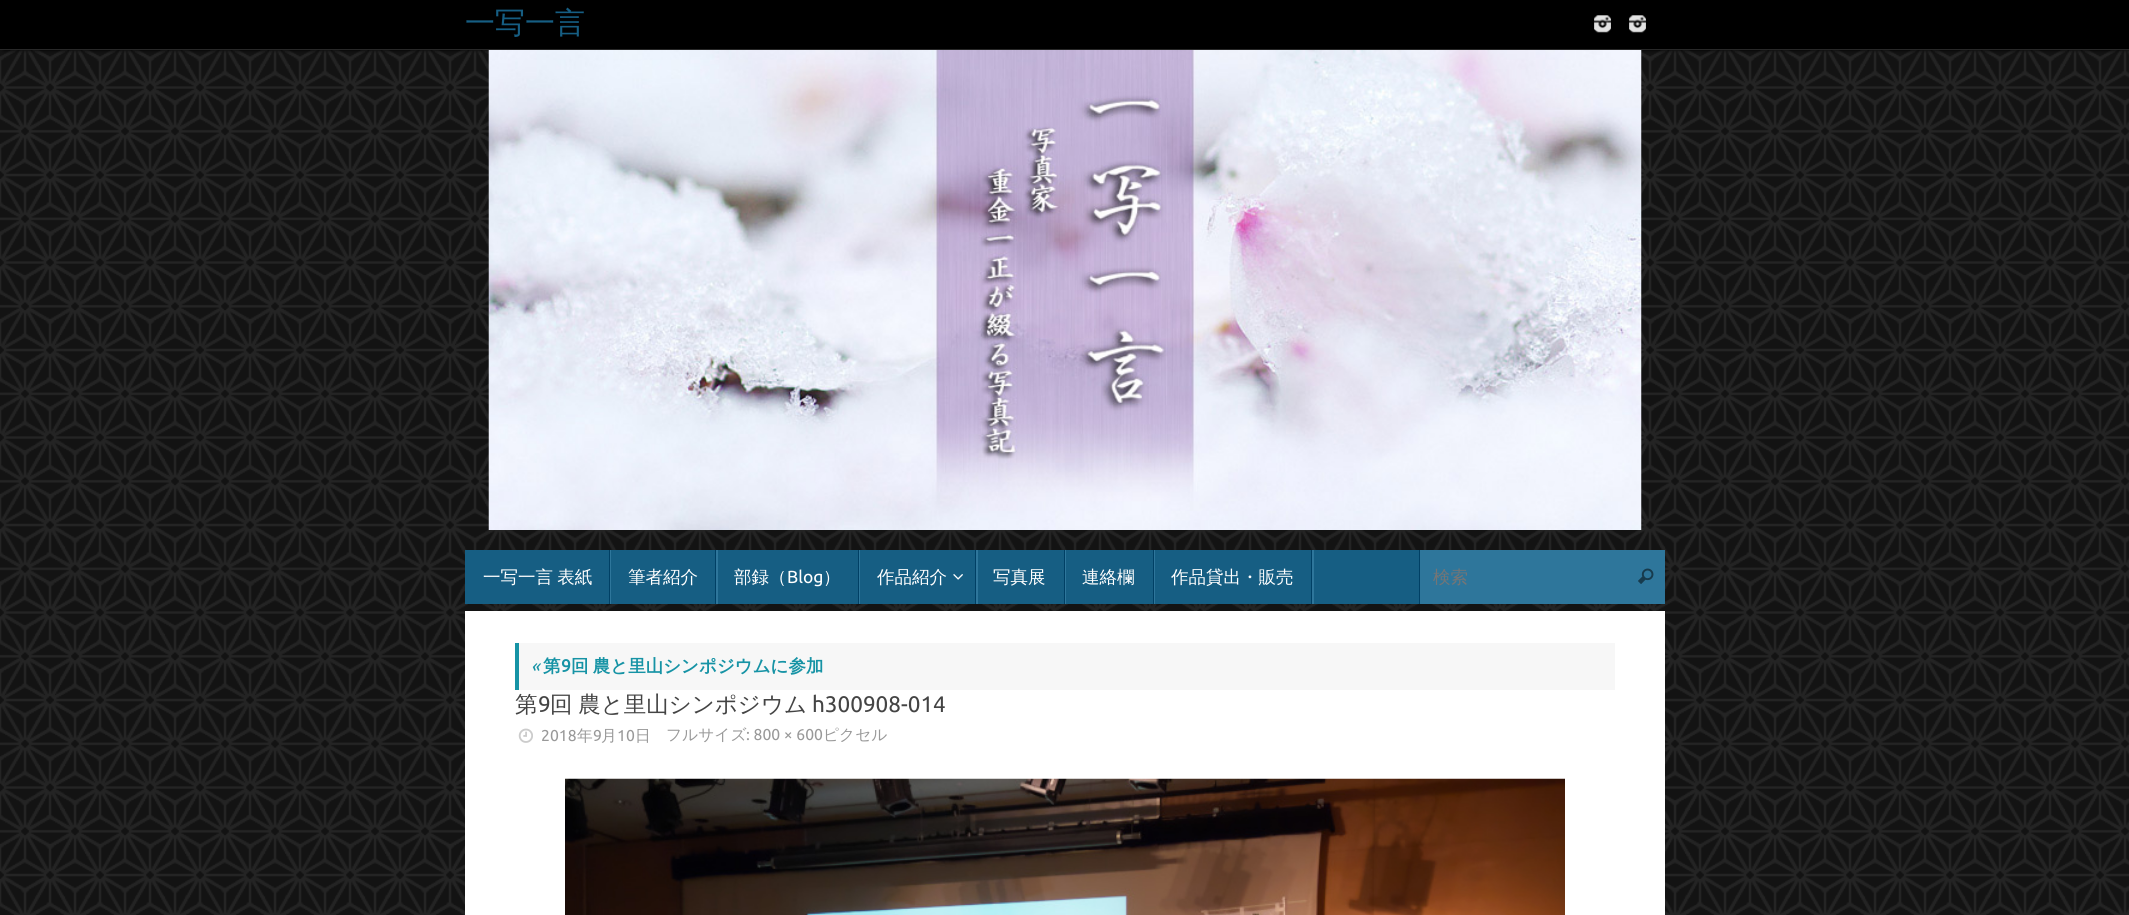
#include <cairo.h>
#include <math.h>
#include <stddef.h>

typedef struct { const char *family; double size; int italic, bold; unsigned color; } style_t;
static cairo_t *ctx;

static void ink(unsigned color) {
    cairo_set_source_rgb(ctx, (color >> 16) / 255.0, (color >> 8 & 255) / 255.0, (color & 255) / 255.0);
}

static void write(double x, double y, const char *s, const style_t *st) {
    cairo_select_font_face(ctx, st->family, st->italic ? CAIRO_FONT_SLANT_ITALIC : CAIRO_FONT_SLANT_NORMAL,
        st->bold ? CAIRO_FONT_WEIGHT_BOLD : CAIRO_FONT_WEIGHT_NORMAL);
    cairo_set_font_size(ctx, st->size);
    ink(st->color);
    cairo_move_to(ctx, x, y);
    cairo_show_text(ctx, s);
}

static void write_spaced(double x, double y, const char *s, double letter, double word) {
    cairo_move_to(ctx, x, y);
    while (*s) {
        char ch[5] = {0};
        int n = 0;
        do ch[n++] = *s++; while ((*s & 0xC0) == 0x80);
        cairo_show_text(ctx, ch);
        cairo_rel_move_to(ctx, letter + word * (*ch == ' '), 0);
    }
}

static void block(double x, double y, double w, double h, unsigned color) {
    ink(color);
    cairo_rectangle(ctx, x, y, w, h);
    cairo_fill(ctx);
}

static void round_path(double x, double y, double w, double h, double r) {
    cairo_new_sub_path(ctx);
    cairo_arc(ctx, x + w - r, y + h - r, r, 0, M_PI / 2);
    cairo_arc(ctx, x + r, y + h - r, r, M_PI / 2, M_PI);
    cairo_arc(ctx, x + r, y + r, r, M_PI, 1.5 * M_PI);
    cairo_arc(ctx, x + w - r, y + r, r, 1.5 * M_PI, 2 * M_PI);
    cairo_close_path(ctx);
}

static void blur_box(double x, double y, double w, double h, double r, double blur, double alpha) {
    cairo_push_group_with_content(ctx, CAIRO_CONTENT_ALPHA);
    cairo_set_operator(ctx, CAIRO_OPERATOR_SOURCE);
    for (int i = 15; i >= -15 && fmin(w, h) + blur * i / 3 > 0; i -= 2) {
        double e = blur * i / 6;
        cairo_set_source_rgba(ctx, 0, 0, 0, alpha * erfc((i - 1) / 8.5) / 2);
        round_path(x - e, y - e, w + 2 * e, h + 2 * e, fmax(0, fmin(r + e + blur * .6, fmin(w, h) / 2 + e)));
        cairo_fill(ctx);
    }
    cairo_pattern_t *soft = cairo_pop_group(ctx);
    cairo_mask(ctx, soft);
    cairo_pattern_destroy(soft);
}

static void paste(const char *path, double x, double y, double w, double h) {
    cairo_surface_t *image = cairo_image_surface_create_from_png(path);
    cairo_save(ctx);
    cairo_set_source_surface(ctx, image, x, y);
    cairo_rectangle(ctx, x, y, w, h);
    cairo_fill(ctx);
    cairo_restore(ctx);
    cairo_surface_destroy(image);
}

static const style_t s1 = {"WenQuanYi Zen Hei Medium", 30, 0, 0, 0x165e83};
static const style_t s2 = {"WenQuanYi Zen Hei Medium", 17.5, 0, 0, 0xffffff};
static const style_t s3 = {"Ubuntu", 17.5, 0, 0, 0xffffff};
static const style_t s4 = {"WenQuanYi Zen Hei Medium", 17.5, 0, 0, 0x757575};
static const style_t s5 = {"Ubuntu", 17.5, 1, 0, 0x1693a5};
static const style_t s6 = {"WenQuanYi Zen Hei", 17.5, 0, 1, 0x1693a5};
static const style_t s7 = {"Ubuntu", 17.5, 0, 1, 0x1693a5};
static const style_t s8 = {"WenQuanYi Zen Hei Medium", 22.5, 0, 0, 0x444444};
static const style_t s9 = {"Ubuntu", 22.5, 0, 0, 0x444444};
static const style_t s10 = {"Ubuntu", 15.75, 0, 0, 0x999999};
static const style_t s11 = {"WenQuanYi Zen Hei Medium", 15.75, 0, 0, 0x999999};

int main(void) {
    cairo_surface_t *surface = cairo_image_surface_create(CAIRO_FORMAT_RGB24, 2129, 915);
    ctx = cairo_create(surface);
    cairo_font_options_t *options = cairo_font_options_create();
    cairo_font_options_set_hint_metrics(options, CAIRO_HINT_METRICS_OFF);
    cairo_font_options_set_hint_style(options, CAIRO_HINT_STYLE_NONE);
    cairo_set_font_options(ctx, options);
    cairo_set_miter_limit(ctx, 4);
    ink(0xffffff);
    cairo_paint(ctx);
    paste("pic1.png", 0, 50, 2129, 865);
    ink(0x000000);
    blur_box(4, 0, 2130, 50, 0, 2, 1);
    block(0, 0, 2129, 49, 0x000000);
    block(0, 49, 2129, 1, 0x282828);
    write(465, 33, "一写一言", &s1);
    paste("pic2.png", 1594, 15, 17, 18);
    paste("pic2.png", 1629, 15, 17, 18);
    paste("pic3.png", 488, 50, 1154, 480);
    block(465, 550, 954, 54, 0x165e83);
    ink(0x2e769b);
    cairo_new_path(ctx);
    cairo_move_to(ctx, 466, 604);
    cairo_line_to(ctx, 611, 604);
    cairo_line_to(ctx, 611, 550);
    cairo_line_to(ctx, 610, 550);
    cairo_line_to(ctx, 610, 604);
    cairo_close_path(ctx);
    cairo_fill(ctx);
    block(609, 550, 1, 54, 0x004065);
    cairo_set_font_size(ctx, 17.5);
    ink(0xffffff);
    write_spaced(483, 583, "一写一言 表紙", 0, -1);
    ink(0x2e769b);
    cairo_new_path(ctx);
    cairo_move_to(ctx, 611, 604);
    cairo_line_to(ctx, 718, 604);
    cairo_line_to(ctx, 718, 550);
    cairo_line_to(ctx, 716, 550);
    cairo_line_to(ctx, 716, 604);
    cairo_close_path(ctx);
    cairo_fill(ctx);
    block(715, 550, 1, 54, 0x004065);
    write(628, 583, "筆者紹介", &s2);
    ink(0x2e769b);
    cairo_new_path(ctx);
    cairo_move_to(ctx, 718, 604);
    cairo_line_to(ctx, 860, 604);
    cairo_line_to(ctx, 860, 550);
    cairo_line_to(ctx, 859, 550);
    cairo_line_to(ctx, 859, 604);
    cairo_close_path(ctx);
    cairo_fill(ctx);
    block(858, 550, 1, 54, 0x004065);
    write(734, 583, "部録（", &s2);
    write(787, 583, "Blog", &s3);
    write(823, 583, "）", &s2);
    ink(0x2e769b);
    cairo_new_path(ctx);
    cairo_move_to(ctx, 860, 604);
    cairo_line_to(ctx, 978, 604);
    cairo_line_to(ctx, 978, 550);
    cairo_line_to(ctx, 976, 550);
    cairo_line_to(ctx, 976, 604);
    cairo_close_path(ctx);
    cairo_fill(ctx);
    block(975, 550, 1, 54, 0x004065);
    write(877, 583, "作品紹介", &s2);
    paste("pic4.png", 953, 574, 10, 6);
    ink(0x2e769b);
    cairo_new_path(ctx);
    cairo_move_to(ctx, 978, 604);
    cairo_line_to(ctx, 1066, 604);
    cairo_line_to(ctx, 1066, 550);
    cairo_line_to(ctx, 1065, 550);
    cairo_line_to(ctx, 1065, 604);
    cairo_close_path(ctx);
    cairo_fill(ctx);
    block(1064, 550, 1, 54, 0x004065);
    write(993, 583, "写真展", &s2);
    ink(0x2e769b);
    cairo_new_path(ctx);
    cairo_move_to(ctx, 1066, 604);
    cairo_line_to(ctx, 1155, 604);
    cairo_line_to(ctx, 1155, 550);
    cairo_line_to(ctx, 1154, 550);
    cairo_line_to(ctx, 1154, 604);
    cairo_close_path(ctx);
    cairo_fill(ctx);
    block(1153, 550, 1, 54, 0x004065);
    write(1082, 583, "連絡欄", &s2);
    ink(0x2e769b);
    cairo_new_path(ctx);
    cairo_move_to(ctx, 1155, 604);
    cairo_line_to(ctx, 1314, 604);
    cairo_line_to(ctx, 1314, 550);
    cairo_line_to(ctx, 1312, 550);
    cairo_line_to(ctx, 1312, 604);
    cairo_close_path(ctx);
    cairo_fill(ctx);
    block(1311, 550, 1, 54, 0x004065);
    write(1171, 583, "作品貸出・販売", &s2);
    block(1420, 550, 245, 54, 0x2e769b);
    block(1419, 550, 1, 54, 0x004065);
    write(1433, 583, "検索", &s4);
    paste("pic5.png", 1638, 568, 16, 16);
    block(465, 611, 1200, 304, 0xffffff);
    block(519, 643, 1096, 47, 0xf7f7f7);
    block(515, 643, 4, 47, 0x1693a5);
    write(531, 672, "«", &s5);
    write(543, 672, "第", &s6);
    write(561, 672, "9", &s7);
    cairo_select_font_face(ctx, "WenQuanYi Zen Hei", CAIRO_FONT_SLANT_NORMAL, CAIRO_FONT_WEIGHT_BOLD);
    write_spaced(571, 672, "回 農と里山シンポジウムに参加", 0, -1);
    write(515, 712, "第", &s8);
    write(538, 712, "9", &s9);
    cairo_select_font_face(ctx, "WenQuanYi Zen Hei Medium", CAIRO_FONT_SLANT_NORMAL, CAIRO_FONT_WEIGHT_NORMAL);
    write_spaced(550, 712, "回 農と里山シンポジウム", 0, -1);
    write(812, 712, "h300908-014", &s9);
    paste("pic6.png", 518, 728, 15, 15);
    write(541, 741, "2018", &s10);
    write(577, 741, "年", &s11);
    write(593, 741, "9", &s10);
    write(601, 741, "月", &s11);
    write(617, 741, "10", &s10);
    write(635, 741, "日", &s11);
    write(666, 740, "フルサイズ", &s11);
    write(746, 740, ": 800 × 600", &s10);
    write(823, 740, "ピクセル", &s11);
    paste("pic7.png", 565, 778, 1000, 137);
    cairo_surface_write_to_png(surface, "screenshot.png");
    cairo_font_options_destroy(options);
    cairo_destroy(ctx);
    cairo_surface_destroy(surface);
    return 0;
}
